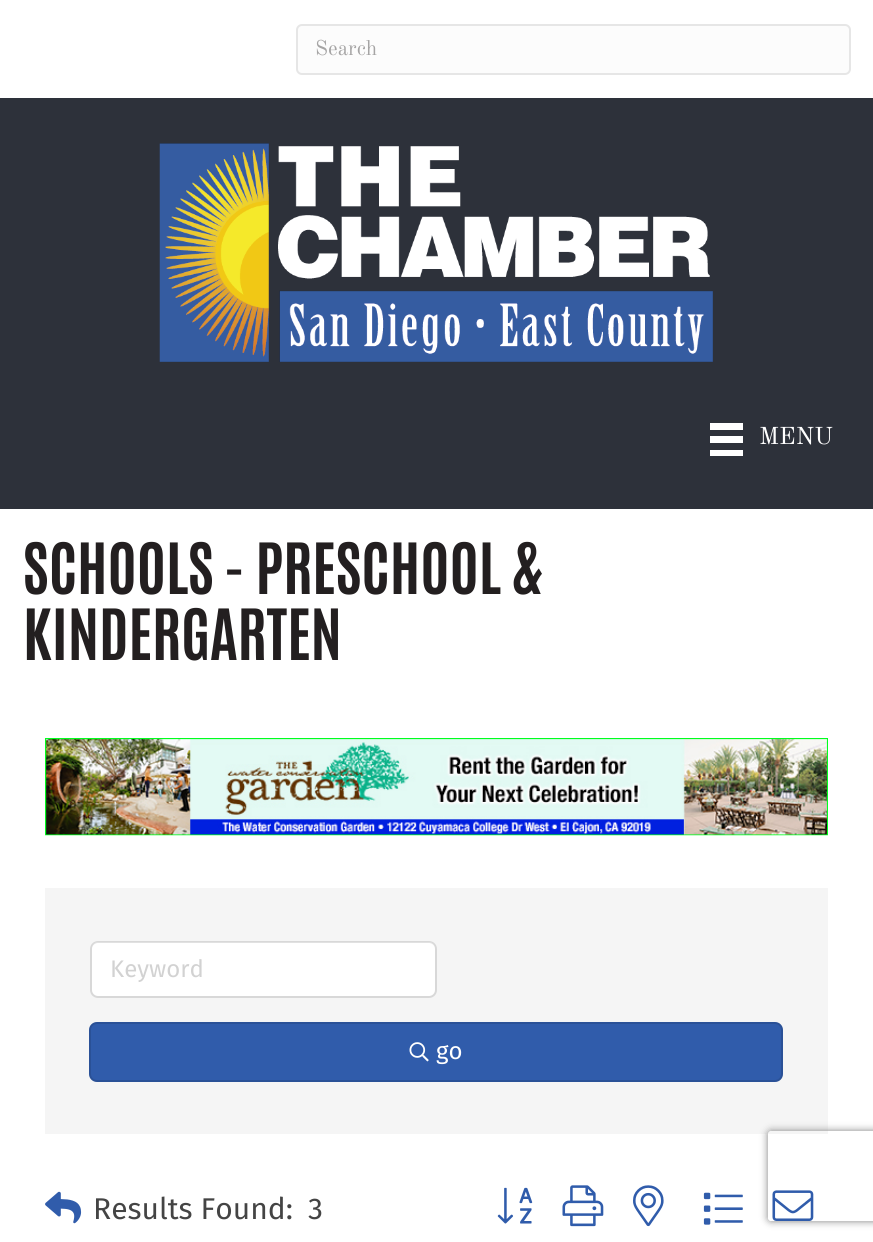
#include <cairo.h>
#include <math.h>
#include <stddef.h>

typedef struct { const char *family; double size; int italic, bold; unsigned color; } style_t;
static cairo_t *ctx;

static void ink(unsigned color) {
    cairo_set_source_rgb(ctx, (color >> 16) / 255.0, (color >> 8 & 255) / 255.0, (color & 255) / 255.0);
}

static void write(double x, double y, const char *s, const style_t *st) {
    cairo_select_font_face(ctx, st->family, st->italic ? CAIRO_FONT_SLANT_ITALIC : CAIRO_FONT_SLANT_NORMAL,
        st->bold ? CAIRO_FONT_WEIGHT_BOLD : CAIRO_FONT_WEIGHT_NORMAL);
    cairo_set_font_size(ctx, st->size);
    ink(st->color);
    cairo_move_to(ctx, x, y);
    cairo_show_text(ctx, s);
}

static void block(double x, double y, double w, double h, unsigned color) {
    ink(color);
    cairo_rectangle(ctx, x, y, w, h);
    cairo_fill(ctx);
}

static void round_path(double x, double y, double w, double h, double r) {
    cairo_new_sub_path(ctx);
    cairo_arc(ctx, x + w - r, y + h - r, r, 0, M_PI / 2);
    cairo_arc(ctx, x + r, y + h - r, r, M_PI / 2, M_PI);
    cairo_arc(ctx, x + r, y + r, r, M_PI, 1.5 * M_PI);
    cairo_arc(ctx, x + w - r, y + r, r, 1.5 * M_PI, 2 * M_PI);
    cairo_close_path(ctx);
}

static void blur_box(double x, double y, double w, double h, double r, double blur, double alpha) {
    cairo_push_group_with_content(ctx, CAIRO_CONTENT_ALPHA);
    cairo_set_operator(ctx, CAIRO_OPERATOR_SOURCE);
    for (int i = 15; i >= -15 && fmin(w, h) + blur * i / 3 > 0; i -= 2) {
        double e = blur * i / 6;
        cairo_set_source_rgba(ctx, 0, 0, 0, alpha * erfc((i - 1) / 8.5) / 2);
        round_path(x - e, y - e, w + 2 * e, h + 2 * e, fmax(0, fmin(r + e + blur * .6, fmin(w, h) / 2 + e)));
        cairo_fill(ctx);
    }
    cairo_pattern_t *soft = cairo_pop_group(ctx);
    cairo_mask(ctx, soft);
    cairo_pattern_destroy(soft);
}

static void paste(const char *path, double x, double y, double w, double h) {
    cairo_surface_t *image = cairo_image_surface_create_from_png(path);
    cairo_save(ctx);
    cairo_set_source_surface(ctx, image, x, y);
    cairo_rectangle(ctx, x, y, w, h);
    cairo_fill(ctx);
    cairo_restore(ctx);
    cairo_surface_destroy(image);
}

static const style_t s1 = {"Old Standard TT", 21, 0, 0, 0xa5a4a4};
static const style_t s2 = {"Old Standard TT", 24, 0, 0, 0xffffff};
static const style_t s3 = {"Antonio", 60, 0, 1, 0x231f20};
static const style_t s4 = {"Fira Sans", 24, 0, 0, 0xd2d2d2};
static const style_t s5 = {"Fira Sans", 24, 0, 0, 0xffffff};
static const style_t s6 = {"Fira Sans", 30, 0, 0, 0x444444};

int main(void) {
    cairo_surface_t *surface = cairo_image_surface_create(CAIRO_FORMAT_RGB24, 873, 1242);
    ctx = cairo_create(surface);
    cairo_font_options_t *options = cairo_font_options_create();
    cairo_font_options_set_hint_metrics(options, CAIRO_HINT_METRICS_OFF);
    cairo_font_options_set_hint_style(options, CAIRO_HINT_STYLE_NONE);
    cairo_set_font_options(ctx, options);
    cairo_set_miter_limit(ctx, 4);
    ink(0x2d313a);
    cairo_paint(ctx);
    block(0, 0, 873, 98, 0xffffff);
    ink(0xfcfcfc);
    round_path(297, 25, 553, 49, 5);
    cairo_fill_preserve(ctx);
    ink(0xe6e6e6);
    cairo_stroke(ctx);
    write(315, 55, "Search", &s1);
    paste("pic1.png", 159, 143, 554, 219);
    block(710, 423, 33, 7, 0xffffff);
    block(710, 436, 33, 7, 0xffffff);
    block(710, 450, 33, 6, 0xffffff);
    write(759, 444, "MENU", &s2);
    block(0, 509, 873, 733, 0xffffff);
    write(23, 594, "SCHOOLS - PRESCHOOL &", &s3);
    write(23, 660, "KINDERGARTEN", &s3);
    paste("pic2.png", 45, 738, 783, 98);
    block(45, 888, 783, 246, 0xf5f5f5);
    ink(0xffffff);
    round_path(92, 942, 343, 54, 6);
    cairo_fill(ctx);
    round_path(91, 942, 345, 55, 7);
    cairo_set_source_rgba(ctx, 0, 0, 0, 0.12);
    cairo_stroke(ctx);
    write(110, 977, "Keyword", &s4);
    ink(0x305cab);
    round_path(89, 1022, 694, 60, 8);
    cairo_fill(ctx);
    round_path(90, 1023, 692, 58, 7);
    cairo_set_source_rgba(ctx, 0, 0, 0, 0.12);
    cairo_stroke(ctx);
    paste("pic3.png", 409, 1042, 20, 20);
    write(436, 1059, "go", &s5);
    paste("pic4.png", 45, 1191, 37, 33);
    write(93, 1219, "Results Found:", &s6);
    write(308, 1219, "3", &s6);
    paste("pic5.png", 497, 1187, 36, 37);
    paste("pic6.png", 562, 1185, 42, 42);
    paste("pic7.png", 633, 1185, 31, 42);
    paste("pic8.png", 703, 1192, 40, 33);
    paste("pic9.png", 772, 1190, 42, 31);
    cairo_save(ctx);
    cairo_set_fill_rule(ctx, CAIRO_FILL_RULE_EVEN_ODD);
    cairo_new_path(ctx);
    cairo_move_to(ctx, 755, 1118);
    cairo_line_to(ctx, 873, 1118);
    cairo_line_to(ctx, 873, 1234);
    cairo_line_to(ctx, 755, 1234);
    cairo_close_path(ctx);
    cairo_move_to(ctx, 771, 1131);
    cairo_line_to(ctx, 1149, 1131);
    cairo_curve_to(ctx, 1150.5, 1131, 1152, 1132.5, 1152, 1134);
    cairo_line_to(ctx, 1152, 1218);
    cairo_curve_to(ctx, 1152, 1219.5, 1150.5, 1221, 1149, 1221);
    cairo_line_to(ctx, 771, 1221);
    cairo_curve_to(ctx, 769.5, 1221, 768, 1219.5, 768, 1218);
    cairo_line_to(ctx, 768, 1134);
    cairo_curve_to(ctx, 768, 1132.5, 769.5, 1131, 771, 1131);
    cairo_close_path(ctx);
    cairo_clip(ctx);
    ink(0x808080);
    blur_box(768, 1131, 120, 90, 3, 4, 1);
    cairo_restore(ctx);
    cairo_surface_write_to_png(surface, "screenshot.png");
    cairo_font_options_destroy(options);
    cairo_destroy(ctx);
    cairo_surface_destroy(surface);
    return 0;
}
